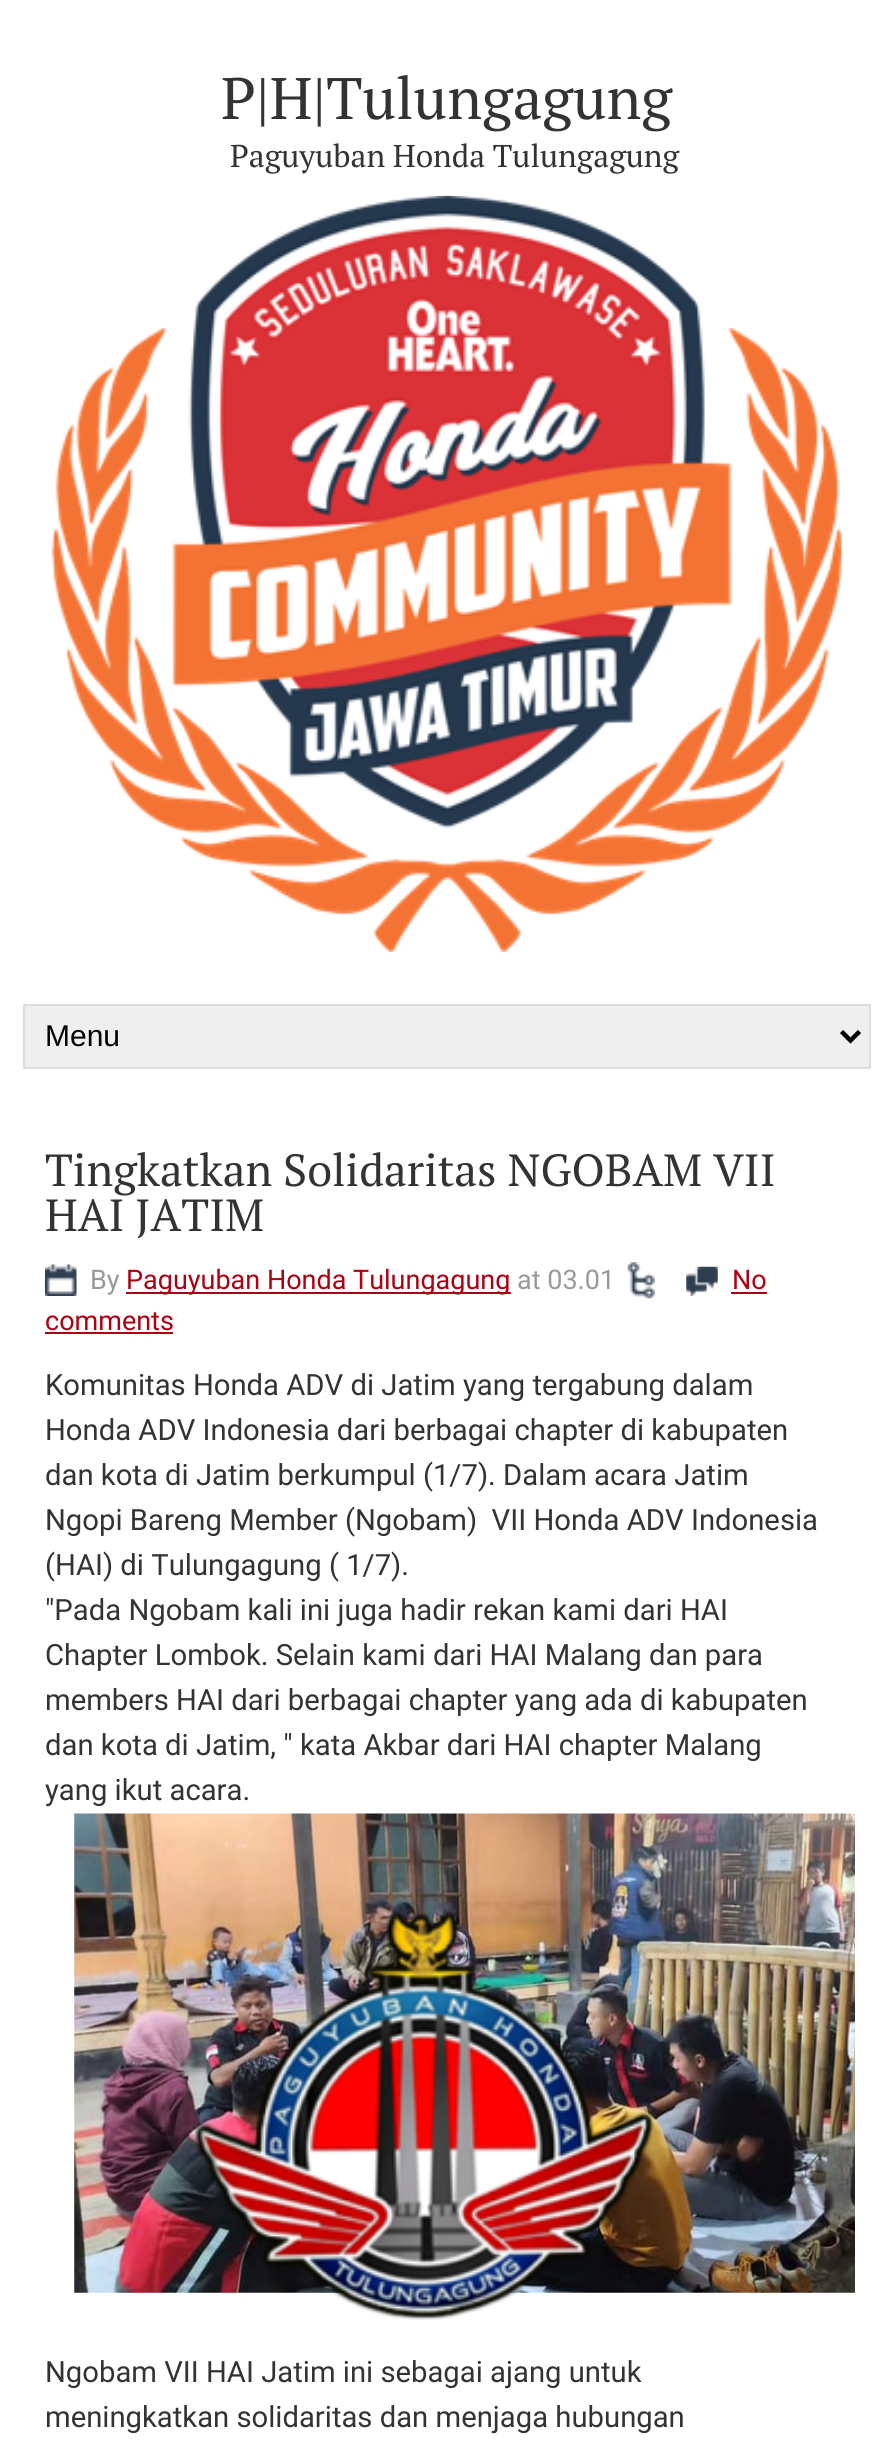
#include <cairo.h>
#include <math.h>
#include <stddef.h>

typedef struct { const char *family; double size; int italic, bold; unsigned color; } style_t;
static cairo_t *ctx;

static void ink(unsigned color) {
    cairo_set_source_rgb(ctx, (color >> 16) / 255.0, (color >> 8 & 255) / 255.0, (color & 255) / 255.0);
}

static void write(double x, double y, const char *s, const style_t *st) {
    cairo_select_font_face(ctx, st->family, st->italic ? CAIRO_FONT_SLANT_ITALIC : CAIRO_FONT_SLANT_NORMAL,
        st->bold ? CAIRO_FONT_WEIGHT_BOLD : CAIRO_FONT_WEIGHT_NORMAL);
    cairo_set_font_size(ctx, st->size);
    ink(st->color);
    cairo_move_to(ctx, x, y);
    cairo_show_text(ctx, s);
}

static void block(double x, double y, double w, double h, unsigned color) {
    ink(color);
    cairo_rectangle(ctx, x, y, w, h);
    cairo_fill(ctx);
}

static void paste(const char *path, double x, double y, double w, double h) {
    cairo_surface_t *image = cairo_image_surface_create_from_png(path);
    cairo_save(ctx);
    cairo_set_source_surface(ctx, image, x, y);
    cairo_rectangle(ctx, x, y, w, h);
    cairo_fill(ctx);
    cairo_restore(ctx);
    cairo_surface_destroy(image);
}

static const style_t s1 = {"PT Serif", 58.5, 0, 0, 0x333333};
static const style_t s2 = {"PT Serif", 31.5, 0, 0, 0x333333};
static const style_t s3 = {"Liberation Sans", 30, 0, 0, 0x000000};
static const style_t s4 = {"PT Serif", 45, 0, 0, 0x333333};
static const style_t s5 = {"Roboto", 27, 0, 0, 0x999999};
static const style_t s6 = {"Roboto", 27, 0, 0, 0xae0011};
static const style_t s7 = {"Roboto", 29.25, 0, 0, 0x333333};

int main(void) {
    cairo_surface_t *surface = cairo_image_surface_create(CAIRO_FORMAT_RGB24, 893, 2461);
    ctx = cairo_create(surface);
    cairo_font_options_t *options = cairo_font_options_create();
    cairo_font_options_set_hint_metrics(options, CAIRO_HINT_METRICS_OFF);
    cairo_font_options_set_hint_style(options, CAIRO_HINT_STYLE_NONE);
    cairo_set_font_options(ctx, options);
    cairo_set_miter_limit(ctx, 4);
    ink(0xffffff);
    cairo_paint(ctx);
    write(221, 119, "P|H|Tulungagung", &s1);
    write(230, 167, "Paguyuban Honda Tulungagung", &s2);
    paste("pic1.png", 51, 195, 791, 757);
    ink(0xefefef);
    cairo_rectangle(ctx, 24, 1005, 846, 63);
    cairo_fill_preserve(ctx);
    ink(0xdddddd);
    cairo_stroke(ctx);
    cairo_new_path(ctx);
    cairo_move_to(ctx, 841.5, 1031.5);
    cairo_line_to(ctx, 850.5, 1040.5);
    cairo_line_to(ctx, 859.5, 1031.5);
    ink(0x000000);
    cairo_set_line_width(ctx, 4.5);
    cairo_stroke(ctx);
    write(45, 1046, "Menu", &s3);
    write(45, 1186, "Tingkatkan Solidaritas NGOBAM VII", &s4);
    write(45, 1231, "HAI JATIM", &s4);
    paste("pic2.png", 45, 1264, 32, 32);
    write(90, 1289, "By", &s5);
    block(126, 1292, 385, 2, 0xae0011);
    write(126, 1289, "Paguyuban Honda Tulungagung", &s6);
    write(517, 1289, "at 03.01", &s5);
    paste("pic3.png", 627, 1262, 28, 37);
    paste("pic4.png", 686, 1266, 32, 30);
    write(732, 1289, "No", &s6);
    block(731, 1292, 36, 2, 0xae0011);
    write(45, 1330, "comments", &s6);
    block(45, 1332, 128, 2, 0xae0011);
    write(45, 1395, "Komunitas Honda ADV di Jatim yang tergabung dalam", &s7);
    write(45, 1440, "Honda ADV Indonesia dari berbagai chapter di kabupaten", &s7);
    write(45, 1485, "dan kota di Jatim berkumpul (1/7). Dalam acara Jatim", &s7);
    write(45, 1530, "Ngopi Bareng Member (Ngobam)  VII Honda ADV Indonesia", &s7);
    write(45, 1575, "(HAI) di Tulungagung ( 1/7).", &s7);
    write(45, 1620, "\"Pada Ngobam kali ini juga hadir rekan kami dari HAI", &s7);
    write(45, 1665, "Chapter Lombok. Selain kami dari HAI Malang dan para", &s7);
    write(45, 1710, "members HAI dari berbagai chapter yang ada di kabupaten", &s7);
    write(45, 1755, "dan kota di Jatim, \" kata Akbar dari HAI chapter Malang", &s7);
    write(45, 1800, "yang ikut acara.", &s7);
    paste("pic5.png", 74, 1813, 781, 480);
    write(45, 2382, "Ngobam VII HAI Jatim ini sebagai ajang untuk", &s7);
    write(45, 2427, "meningkatkan solidaritas dan menjaga hubungan", &s7);
    paste("pic6.png", 193, 1909, 462, 411);
    cairo_surface_write_to_png(surface, "screenshot.png");
    cairo_font_options_destroy(options);
    cairo_destroy(ctx);
    cairo_surface_destroy(surface);
    return 0;
}
